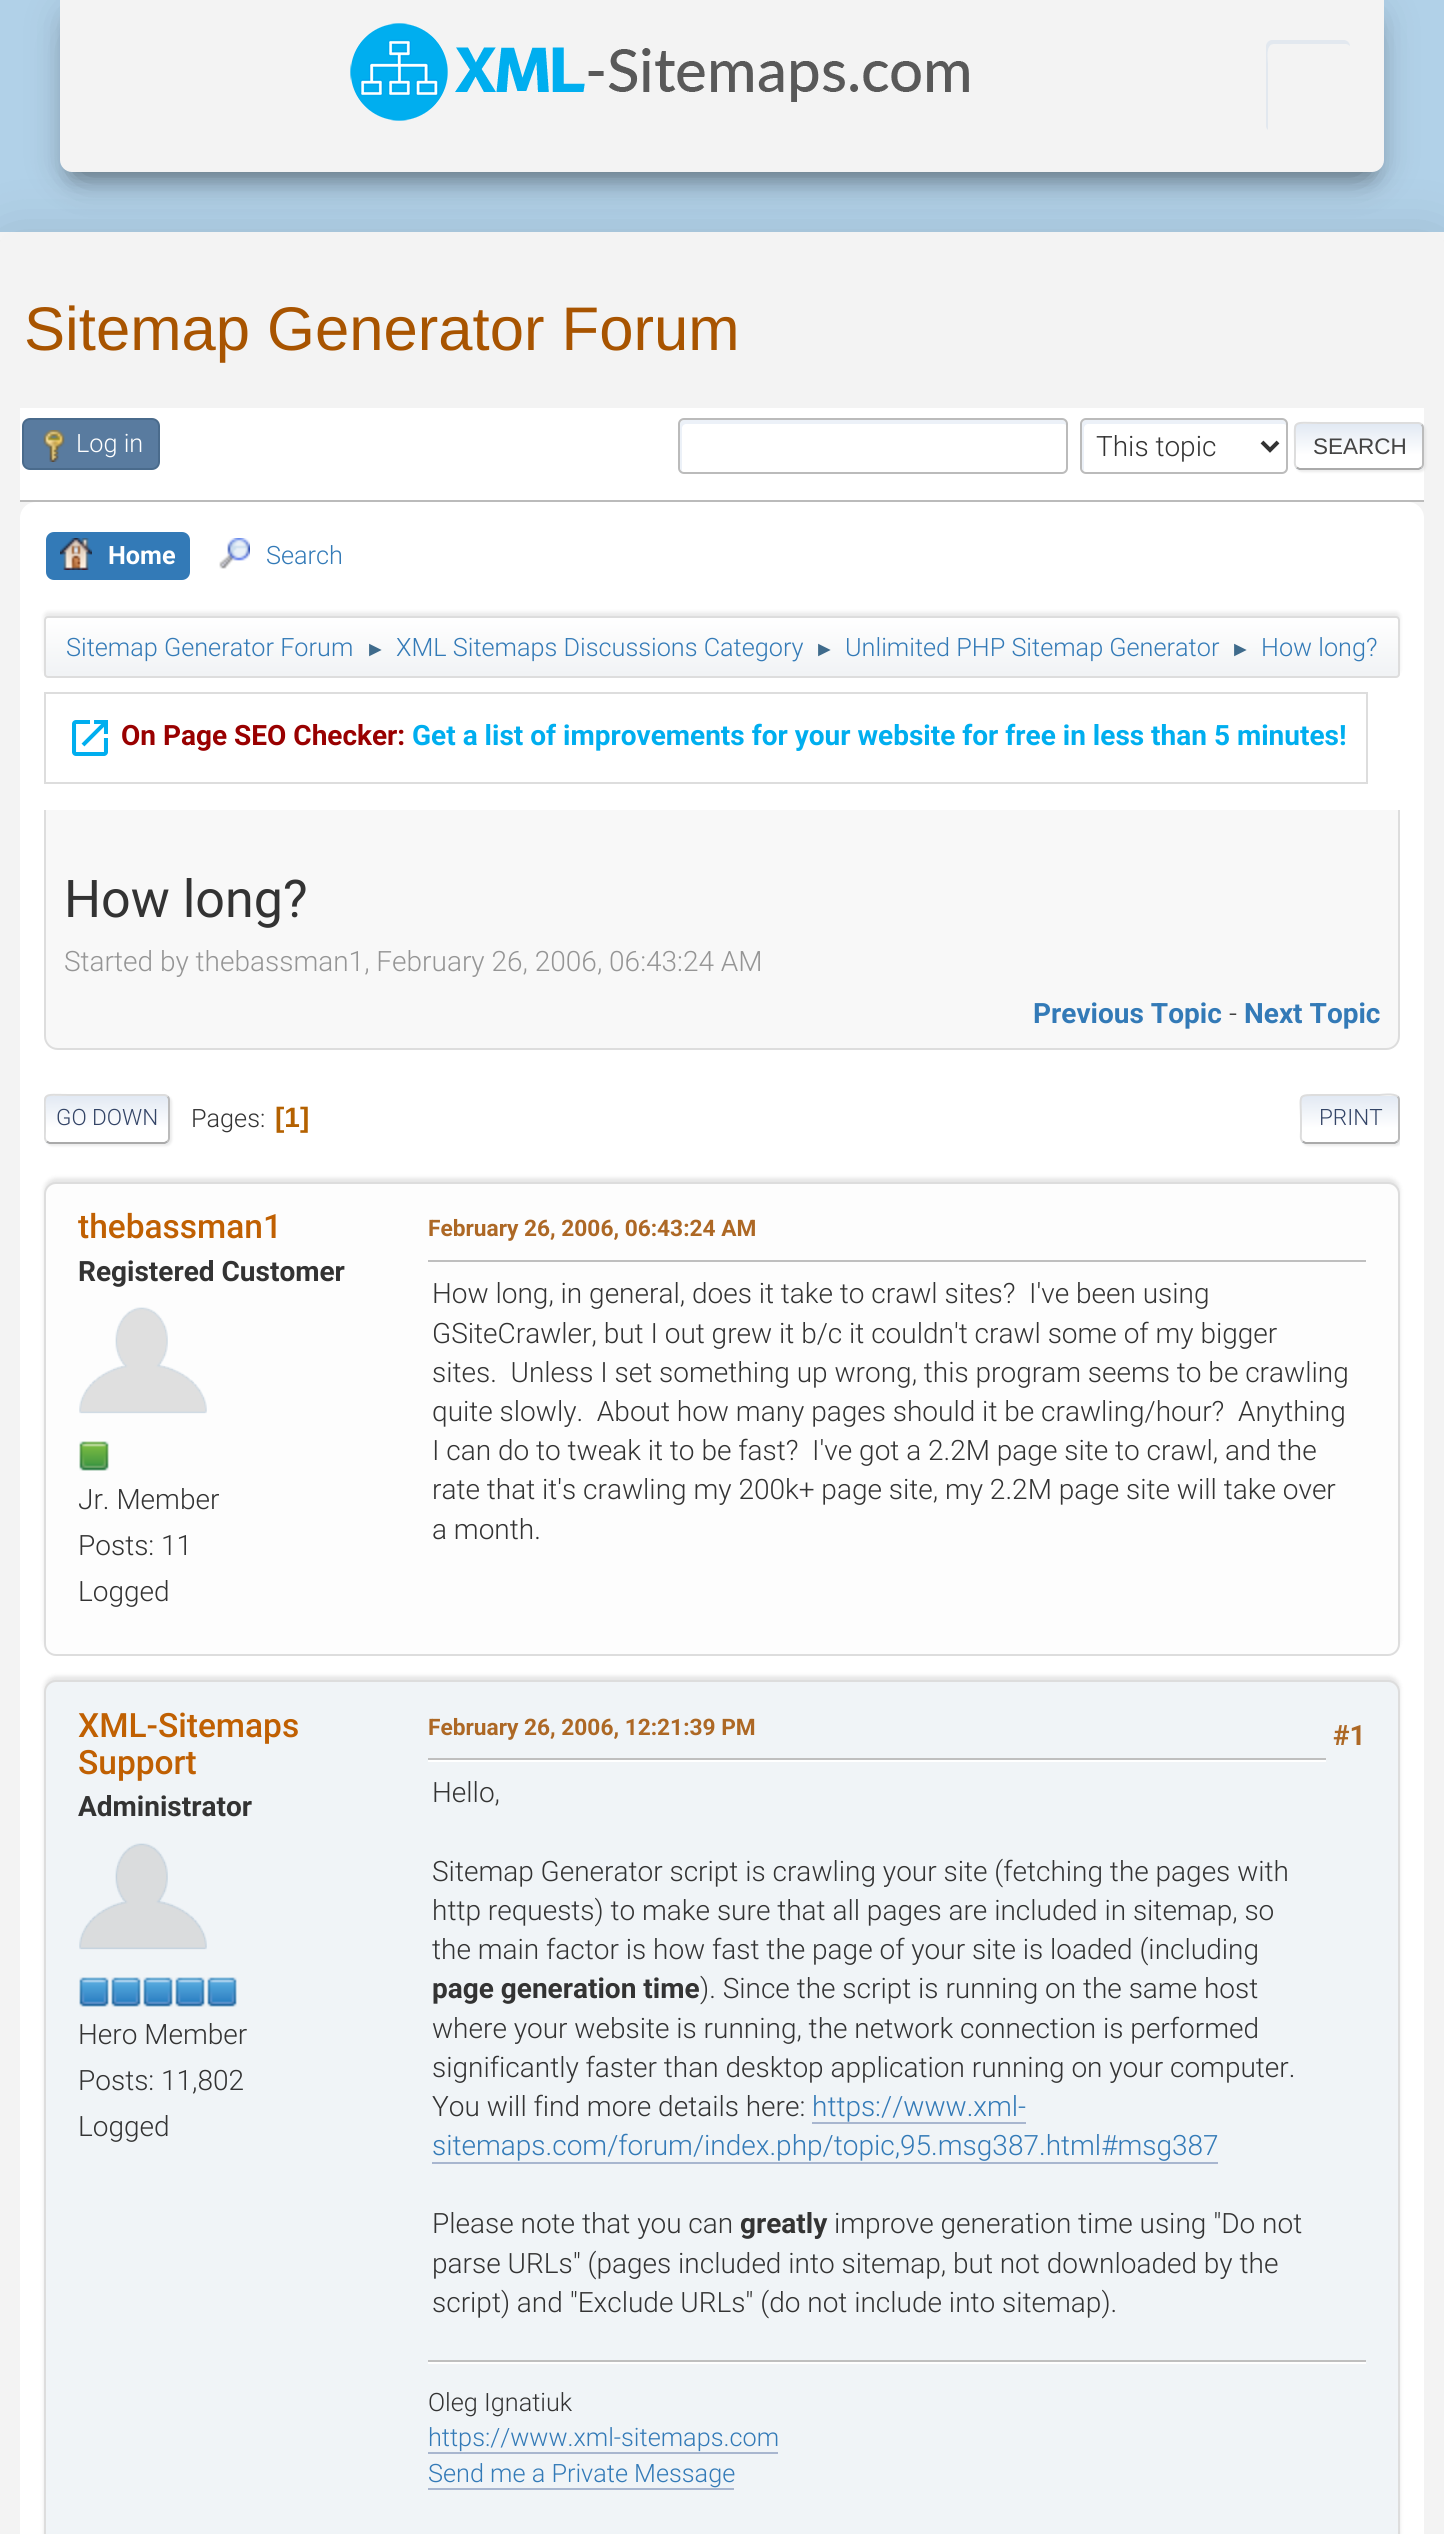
#include <cairo.h>
#include <math.h>
#include <stddef.h>

typedef struct { const char *family; double size; int italic, bold; unsigned color; } style_t;
static cairo_t *ctx;

static void ink(unsigned color) {
    cairo_set_source_rgb(ctx, (color >> 16) / 255.0, (color >> 8 & 255) / 255.0, (color & 255) / 255.0);
}

static void write(double x, double y, const char *s, const style_t *st) {
    cairo_select_font_face(ctx, st->family, st->italic ? CAIRO_FONT_SLANT_ITALIC : CAIRO_FONT_SLANT_NORMAL,
        st->bold ? CAIRO_FONT_WEIGHT_BOLD : CAIRO_FONT_WEIGHT_NORMAL);
    cairo_set_font_size(ctx, st->size);
    ink(st->color);
    cairo_move_to(ctx, x, y);
    cairo_show_text(ctx, s);
}

static void block(double x, double y, double w, double h, unsigned color) {
    ink(color);
    cairo_rectangle(ctx, x, y, w, h);
    cairo_fill(ctx);
}

static void round_path(double x, double y, double w, double h, double r) {
    cairo_new_sub_path(ctx);
    cairo_arc(ctx, x + w - r, y + h - r, r, 0, M_PI / 2);
    cairo_arc(ctx, x + r, y + h - r, r, M_PI / 2, M_PI);
    cairo_arc(ctx, x + r, y + r, r, M_PI, 1.5 * M_PI);
    cairo_arc(ctx, x + w - r, y + r, r, 1.5 * M_PI, 2 * M_PI);
    cairo_close_path(ctx);
}

static void blur_box(double x, double y, double w, double h, double r, double blur, double alpha) {
    cairo_push_group_with_content(ctx, CAIRO_CONTENT_ALPHA);
    cairo_set_operator(ctx, CAIRO_OPERATOR_SOURCE);
    for (int i = 15; i >= -15 && fmin(w, h) + blur * i / 3 > 0; i -= 2) {
        double e = blur * i / 6;
        cairo_set_source_rgba(ctx, 0, 0, 0, alpha * erfc((i - 1) / 8.5) / 2);
        round_path(x - e, y - e, w + 2 * e, h + 2 * e, fmax(0, fmin(r + e + blur * .6, fmin(w, h) / 2 + e)));
        cairo_fill(ctx);
    }
    cairo_pattern_t *soft = cairo_pop_group(ctx);
    cairo_mask(ctx, soft);
    cairo_pattern_destroy(soft);
}

static void paste(const char *path, double x, double y, double w, double h) {
    cairo_surface_t *image = cairo_image_surface_create_from_png(path);
    cairo_save(ctx);
    cairo_set_source_surface(ctx, image, x, y);
    cairo_rectangle(ctx, x, y, w, h);
    cairo_fill(ctx);
    cairo_restore(ctx);
    cairo_surface_destroy(image);
}

static const style_t s1 = {"Liberation Sans", 61.6, 0, 0, 0xa85400};
static const style_t s2 = {"Roboto Light", 25.25, 0, 0, 0xffffff};
static const style_t s3 = {"Roboto Light", 28, 0, 0, 0x333333};
static const style_t s4 = {"Liberation Sans", 22.5, 0, 0, 0x444444};
static const style_t s5 = {"Roboto", 25.25, 0, 1, 0xffffff};
static const style_t s6 = {"Roboto Light", 25.25, 0, 0, 0x337ab7};
static const style_t s7 = {"Liberation Sans", 21, 0, 0, 0x3f6b8c};
static const style_t s8 = {"Roboto", 28, 0, 1, 0x990000};
static const style_t s9 = {"Roboto", 28, 0, 1, 0x00aeef};
static const style_t s10 = {"Roboto", 52, 0, 0, 0x333333};
static const style_t s11 = {"Roboto Light", 28, 0, 0, 0x959595};
static const style_t s12 = {"Roboto", 28, 0, 1, 0x337ab7};
static const style_t s13 = {"Roboto Light", 22.5, 0, 0, 0x334466};
static const style_t s14 = {"Roboto Light", 25.25, 0, 0, 0x333333};
static const style_t s15 = {"Liberation Sans", 28, 0, 1, 0xb46100};
static const style_t s16 = {"Roboto Medium", 33.5, 0, 0, 0xc06002};
static const style_t s17 = {"Roboto", 28, 0, 1, 0x333333};
static const style_t s18 = {"Roboto", 22.7, 0, 1, 0xad6825};
static const style_t s19 = {"Roboto", 28, 0, 1, 0xad6825};
static const style_t s20 = {"Roboto Light", 28, 0, 0, 0x337ab7};

int main(void) {
    cairo_surface_t *surface = cairo_image_surface_create(CAIRO_FORMAT_RGB24, 1444, 2534);
    ctx = cairo_create(surface);
    cairo_font_options_t *options = cairo_font_options_create();
    cairo_font_options_set_hint_metrics(options, CAIRO_HINT_METRICS_OFF);
    cairo_font_options_set_hint_style(options, CAIRO_HINT_STYLE_NONE);
    cairo_set_font_options(ctx, options);
    cairo_set_miter_limit(ctx, 4);
    cairo_pattern_t *gradient;
    ink(0xffffff);
    cairo_paint(ctx);
    block(0, 0, 1444, 232, 0xb1d1e8);
    ink(0x000000);
    blur_box(70, 26, 1304, 152, 2, 10, 0.2);
    blur_box(-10, 234, 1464, 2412, 22, 30, 0.12);
    ink(0xf3f3f3);
    round_path(0, 232, 1444, 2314, 12);
    cairo_fill(ctx);
    ink(0x000000);
    blur_box(60, 6, 1324, 172, 12, 20, 0.12);
    blur_box(84, 44, 1276, 124, 0, 20, 0.42);
    ink(0xf3f3f3);
    cairo_new_path(ctx);
    cairo_move_to(ctx, 60, 0);
    cairo_line_to(ctx, 1384, 0);
    cairo_line_to(ctx, 1384, 160);
    cairo_curve_to(ctx, 1384, 166.5, 1378.5, 172, 1372, 172);
    cairo_line_to(ctx, 72, 172);
    cairo_curve_to(ctx, 65.5, 172, 60, 166.5, 60, 160);
    cairo_close_path(ctx);
    cairo_fill(ctx);
    paste("pic1.png", 350, 23, 619, 98);
    ink(0xe2e8ef);
    cairo_new_path(ctx);
    cairo_move_to(ctx, 1274, 44);
    cairo_line_to(ctx, 1346, 44);
    cairo_curve_to(ctx, 1347, 44, 1349, 45, 1350, 46);
    cairo_curve_to(ctx, 1350, 43, 1347, 40, 1344, 40);
    cairo_line_to(ctx, 1272, 40);
    cairo_curve_to(ctx, 1269, 40, 1266, 43, 1266, 46);
    cairo_line_to(ctx, 1266, 126);
    cairo_curve_to(ctx, 1266, 128, 1267, 129, 1268, 130);
    cairo_line_to(ctx, 1268, 63);
    cairo_curve_to(ctx, 1268, 60, 1265, 44, 1274, 44);
    cairo_close_path(ctx);
    cairo_fill(ctx);
    write(24, 350, "Sitemap Generator Forum", &s1);
    block(20, 408, 1404, 92, 0xffffff);
    block(20, 500, 1404, 2, 0xbbbbbb);
    ink(0x597b9f);
    round_path(23, 419, 136, 50, 7);
    cairo_fill_preserve(ctx);
    ink(0x4a6b8c);
    cairo_stroke(ctx);
    paste("pic2.png", 43, 430, 22, 32);
    write(76, 452, "Log in", &s2);
    ink(0xecf1f8);
    cairo_new_path(ctx);
    cairo_move_to(ctx, 686, 424);
    cairo_line_to(ctx, 1064, 424);
    cairo_line_to(ctx, 1066, 425);
    cairo_line_to(ctx, 1066, 424);
    cairo_curve_to(ctx, 1066, 422, 1064, 420, 1062, 420);
    cairo_line_to(ctx, 684, 420);
    cairo_curve_to(ctx, 682, 420, 680, 422, 680, 424);
    cairo_line_to(ctx, 680, 468);
    cairo_curve_to(ctx, 680, 469, 681, 471, 682, 471);
    cairo_line_to(ctx, 682, 428);
    cairo_curve_to(ctx, 682, 426, 684, 424, 686, 424);
    cairo_close_path(ctx);
    cairo_fill(ctx);
    round_path(679, 419, 388, 54, 5);
    ink(0xbbbbbb);
    cairo_stroke(ctx);
    ink(0xecf1f8);
    cairo_new_path(ctx);
    cairo_move_to(ctx, 1088, 424);
    cairo_line_to(ctx, 1284, 424);
    cairo_line_to(ctx, 1286, 425);
    cairo_line_to(ctx, 1286, 424);
    cairo_curve_to(ctx, 1286, 422, 1284, 420, 1282, 420);
    cairo_line_to(ctx, 1086, 420);
    cairo_curve_to(ctx, 1084, 420, 1082, 422, 1082, 424);
    cairo_line_to(ctx, 1082, 468);
    cairo_curve_to(ctx, 1082, 469, 1083, 471, 1084, 471);
    cairo_line_to(ctx, 1084, 428);
    cairo_curve_to(ctx, 1084, 426, 1086, 424, 1088, 424);
    cairo_close_path(ctx);
    cairo_fill(ctx);
    round_path(1081, 419, 206, 54, 5);
    ink(0xbbbbbb);
    cairo_stroke(ctx);
    cairo_new_path(ctx);
    cairo_move_to(ctx, 1262, 442);
    cairo_line_to(ctx, 1270, 450);
    cairo_line_to(ctx, 1278, 442);
    ink(0x333333);
    cairo_set_line_width(ctx, 4);
    cairo_stroke(ctx);
    write(1096, 456, "This topic", &s3);
    ink(0xdddddd);
    blur_box(1296, 424, 130, 48, 6, 1, 0.57);
    cairo_save(ctx);
    round_path(1294, 422, 130, 48, 6);
    cairo_clip(ctx);
    gradient = cairo_pattern_create_linear(1359, 424, 1359, 468);
    cairo_pattern_add_color_stop_rgba(gradient, 0, 0.886, 0.914, 0.953, 1);
    cairo_pattern_add_color_stop_rgba(gradient, 0.7, 1, 1, 1, 1);
    cairo_set_source(ctx, gradient);
    cairo_pattern_destroy(gradient);
    cairo_rectangle(ctx, 1294, 424, 130, 44);
    cairo_fill(ctx);
    gradient = cairo_pattern_create_linear(1359, 468, 1359, 512);
    cairo_pattern_add_color_stop_rgba(gradient, 0, 0.886, 0.914, 0.953, 1);
    cairo_pattern_add_color_stop_rgba(gradient, 0.7, 1, 1, 1, 1);
    cairo_set_source(ctx, gradient);
    cairo_pattern_destroy(gradient);
    cairo_rectangle(ctx, 1294, 468, 130, 2);
    cairo_fill(ctx);
    cairo_restore(ctx);
    cairo_new_path(ctx);
    cairo_move_to(ctx, 1421.5, 424.5);
    cairo_curve_to(ctx, 1422.5, 425.5, 1423, 426.5, 1423, 428);
    cairo_line_to(ctx, 1423, 464);
    cairo_curve_to(ctx, 1423, 465.5, 1422.5, 466.5, 1421.5, 467.5);
    ink(0xbbbbbb);
    cairo_set_line_width(ctx, 2);
    cairo_stroke(ctx);
    cairo_new_path(ctx);
    cairo_move_to(ctx, 1421.5, 467.5);
    cairo_line_to(ctx, 1418.5, 469);
    cairo_line_to(ctx, 1299.5, 469);
    cairo_line_to(ctx, 1296.5, 467.5);
    ink(0xaaaaaa);
    cairo_stroke(ctx);
    cairo_new_path(ctx);
    cairo_move_to(ctx, 1296.5, 467.5);
    cairo_curve_to(ctx, 1294, 465, 1295, 460.5, 1295, 458);
    cairo_line_to(ctx, 1295, 446);
    cairo_curve_to(ctx, 1295, 419, 1291, 423, 1319.5, 423);
    cairo_line_to(ctx, 1418, 423);
    cairo_curve_to(ctx, 1419.5, 423, 1420.5, 423.5, 1421.5, 424.5);
    ink(0xdddddd);
    cairo_stroke(ctx);
    write(1313, 454, "SEARCH", &s4);
    ink(0xffffff);
    round_path(20, 502, 1404, 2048, 16);
    cairo_fill(ctx);
    ink(0x337ab7);
    round_path(46, 532, 144, 48, 8);
    cairo_fill(ctx);
    paste("pic3.png", 60, 538, 32, 32);
    write(108, 564, "Home", &s5);
    paste("pic4.png", 219, 538, 31, 31);
    write(266, 564, "Search", &s6);
    ink(0x000000);
    blur_box(44, 612, 1356, 62, 4, 2, 0.08);
    cairo_save(ctx);
    round_path(44, 616, 1356, 62, 4);
    cairo_clip(ctx);
    gradient = cairo_pattern_create_linear(722, 618, 722, 676);
    cairo_pattern_add_color_stop_rgba(gradient, 0, 1, 1, 1, 1);
    cairo_pattern_add_color_stop_rgba(gradient, 0.95, 0.945, 0.953, 0.961, 1);
    cairo_set_source(ctx, gradient);
    cairo_pattern_destroy(gradient);
    cairo_rectangle(ctx, 44, 618, 1356, 58);
    cairo_fill(ctx);
    cairo_restore(ctx);
    round_path(45, 617, 1354, 60, 3);
    ink(0xdddddd);
    cairo_stroke(ctx);
    write(66, 656, "Sitemap Generator Forum", &s6);
    write(365, 656, "►", &s7);
    write(396, 656, "XML Sitemaps Discussions Category", &s6);
    write(814, 656, "►", &s7);
    write(845, 656, "Unlimited PHP Sitemap Generator", &s6);
    write(1230, 656, "►", &s7);
    write(1261, 656, "How long?", &s6);
    cairo_rectangle(ctx, 45, 693, 1322, 90);
    ink(0xdddddd);
    cairo_stroke(ctx);
    paste("pic5.png", 72, 720, 36, 36);
    write(121, 745, "On Page SEO Checker:", &s8);
    write(412, 745, "Get a list of improvements for your website for free in less than 5 minutes!", &s9);
    ink(0xf8f8f8);
    cairo_new_path(ctx);
    cairo_move_to(ctx, 44, 810);
    cairo_line_to(ctx, 1400, 810);
    cairo_line_to(ctx, 1400, 1036);
    cairo_curve_to(ctx, 1400, 1043.5, 1393.5, 1050, 1386, 1050);
    cairo_line_to(ctx, 58, 1050);
    cairo_curve_to(ctx, 50.5, 1050, 44, 1043.5, 44, 1036);
    cairo_close_path(ctx);
    cairo_fill(ctx);
    ink(0xdddddd);
    cairo_set_fill_rule(ctx, CAIRO_FILL_RULE_EVEN_ODD);
    cairo_new_path(ctx);
    cairo_move_to(ctx, 44, 810);
    cairo_line_to(ctx, 1400, 810);
    cairo_line_to(ctx, 1400, 1036);
    cairo_curve_to(ctx, 1400, 1044, 1394, 1050, 1386, 1050);
    cairo_line_to(ctx, 58, 1050);
    cairo_curve_to(ctx, 50, 1050, 44, 1044, 44, 1036);
    cairo_close_path(ctx);
    cairo_move_to(ctx, 46, 810);
    cairo_line_to(ctx, 1398, 810);
    cairo_line_to(ctx, 1398, 1036);
    cairo_curve_to(ctx, 1398, 1043, 1393, 1048, 1386, 1048);
    cairo_line_to(ctx, 58, 1048);
    cairo_curve_to(ctx, 51, 1048, 46, 1043, 46, 1036);
    cairo_close_path(ctx);
    cairo_fill(ctx);
    write(64, 917, "How long?", &s10);
    write(64, 971, "Started by thebassman1, February 26, 2006, 06:43:24 AM", &s11);
    write(1033, 1023, "Previous Topic", &s12);
    write(1229, 1023, "-", &s3);
    write(1244, 1023, "Next Topic", &s12);
    ink(0xdddddd);
    blur_box(46, 1096, 126, 50, 6, 1, 0.57);
    cairo_save(ctx);
    cairo_set_fill_rule(ctx, CAIRO_FILL_RULE_WINDING);
    round_path(44, 1094, 126, 50, 6);
    cairo_clip(ctx);
    gradient = cairo_pattern_create_linear(107, 1096, 107, 1142);
    cairo_pattern_add_color_stop_rgba(gradient, 0, 0.886, 0.914, 0.953, 1);
    cairo_pattern_add_color_stop_rgba(gradient, 0.7, 1, 1, 1, 1);
    cairo_set_source(ctx, gradient);
    cairo_pattern_destroy(gradient);
    cairo_rectangle(ctx, 44, 1096, 126, 46);
    cairo_fill(ctx);
    gradient = cairo_pattern_create_linear(107, 1142, 107, 1188);
    cairo_pattern_add_color_stop_rgba(gradient, 0, 0.886, 0.914, 0.953, 1);
    cairo_pattern_add_color_stop_rgba(gradient, 0.7, 1, 1, 1, 1);
    cairo_set_source(ctx, gradient);
    cairo_pattern_destroy(gradient);
    cairo_rectangle(ctx, 44, 1142, 126, 2);
    cairo_fill(ctx);
    cairo_restore(ctx);
    cairo_new_path(ctx);
    cairo_move_to(ctx, 167.5, 1096.5);
    cairo_curve_to(ctx, 168.5, 1097.5, 169, 1098.5, 169, 1100);
    cairo_line_to(ctx, 169, 1138);
    cairo_curve_to(ctx, 169, 1139.5, 168.5, 1140.5, 167.5, 1141.5);
    ink(0xbbbbbb);
    cairo_stroke(ctx);
    cairo_new_path(ctx);
    cairo_move_to(ctx, 167.5, 1141.5);
    cairo_line_to(ctx, 164.5, 1143);
    cairo_line_to(ctx, 49.5, 1143);
    cairo_line_to(ctx, 46.5, 1141.5);
    ink(0xaaaaaa);
    cairo_stroke(ctx);
    cairo_save(ctx);
    cairo_set_fill_rule(ctx, CAIRO_FILL_RULE_WINDING);
    cairo_rectangle(ctx, 44, 1080, 1356, 78);
    cairo_clip(ctx);
    cairo_new_path(ctx);
    cairo_move_to(ctx, 46.5, 1141.5);
    cairo_curve_to(ctx, 44, 1139, 45, 1134.5, 45, 1131.5);
    cairo_line_to(ctx, 45, 1119);
    cairo_curve_to(ctx, 45, 1091, 40.5, 1095, 69, 1095);
    cairo_line_to(ctx, 164, 1095);
    cairo_curve_to(ctx, 165.5, 1095, 166.5, 1095.5, 167.5, 1096.5);
    ink(0xdddddd);
    cairo_stroke(ctx);
    cairo_restore(ctx);
    write(56, 1125, "GO DOWN", &s13);
    write(191, 1127, "Pages:", &s14);
    write(275, 1127, "[1]", &s15);
    cairo_save(ctx);
    cairo_set_fill_rule(ctx, CAIRO_FILL_RULE_WINDING);
    cairo_rectangle(ctx, 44, 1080, 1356, 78);
    cairo_clip(ctx);
    ink(0xdddddd);
    blur_box(1302, 1096, 100, 50, 6, 1, 0.57);
    cairo_restore(ctx);
    ink(0xffffff);
    round_path(1300, 1094, 100, 50, 6);
    cairo_fill(ctx);
    cairo_save(ctx);
    cairo_set_fill_rule(ctx, CAIRO_FILL_RULE_WINDING);
    round_path(1300, 1094, 100, 50, 6);
    cairo_clip(ctx);
    gradient = cairo_pattern_create_linear(1350, 1096, 1350, 1142);
    cairo_pattern_add_color_stop_rgba(gradient, 0, 0.886, 0.914, 0.953, 1);
    cairo_pattern_add_color_stop_rgba(gradient, 0.7, 1, 1, 1, 1);
    cairo_set_source(ctx, gradient);
    cairo_pattern_destroy(gradient);
    cairo_rectangle(ctx, 1300, 1096, 100, 46);
    cairo_fill(ctx);
    gradient = cairo_pattern_create_linear(1350, 1142, 1350, 1188);
    cairo_pattern_add_color_stop_rgba(gradient, 0, 0.886, 0.914, 0.953, 1);
    cairo_pattern_add_color_stop_rgba(gradient, 0.7, 1, 1, 1, 1);
    cairo_set_source(ctx, gradient);
    cairo_pattern_destroy(gradient);
    cairo_rectangle(ctx, 1300, 1142, 100, 2);
    cairo_fill(ctx);
    cairo_restore(ctx);
    cairo_new_path(ctx);
    cairo_move_to(ctx, 1397.5, 1096.5);
    cairo_curve_to(ctx, 1398.5, 1097.5, 1399, 1098.5, 1399, 1100);
    cairo_line_to(ctx, 1399, 1138);
    cairo_curve_to(ctx, 1399, 1139.5, 1398.5, 1140.5, 1397.5, 1141.5);
    ink(0xbbbbbb);
    cairo_stroke(ctx);
    cairo_new_path(ctx);
    cairo_move_to(ctx, 1397.5, 1141.5);
    cairo_line_to(ctx, 1394.5, 1143);
    cairo_line_to(ctx, 1305.5, 1143);
    cairo_line_to(ctx, 1302.5, 1141.5);
    ink(0xaaaaaa);
    cairo_stroke(ctx);
    cairo_new_path(ctx);
    cairo_move_to(ctx, 1302.5, 1141.5);
    cairo_curve_to(ctx, 1300, 1139, 1301, 1134.5, 1301, 1131.5);
    cairo_line_to(ctx, 1301, 1119);
    cairo_curve_to(ctx, 1301, 1093.5, 1296, 1095, 1320.5, 1095);
    cairo_line_to(ctx, 1379.5, 1095);
    cairo_curve_to(ctx, 1381, 1095, 1394, 1093, 1397.5, 1096.5);
    ink(0xdddddd);
    cairo_stroke(ctx);
    write(1319, 1125, "PRINT", &s13);
    ink(0x000000);
    blur_box(44, 1178, 1356, 474, 12, 2, 0.1);
    ink(0xfdfdfd);
    round_path(45, 1183, 1354, 472, 11);
    cairo_fill_preserve(ctx);
    ink(0xdddddd);
    cairo_stroke(ctx);
    write(78, 1238, "thebassman1", &s16);
    write(78, 1281, "Registered Customer", &s17);
    paste("pic6.png", 79, 1307, 128, 107);
    paste("pic7.png", 79, 1441, 30, 30);
    write(78, 1509, "Jr. Member", &s3);
    write(78, 1555, "Posts: 11", &s3);
    write(78, 1601, "Logged", &s3);
    write(428, 1236, "February 26, 2006, 06:43:24 AM", &s18);
    block(428, 1260, 938, 2, 0xbfbfbf);
    write(432, 1303, "How long, in general, does it take to crawl sites?  I've been using", &s3);
    write(432, 1343, "GSiteCrawler, but I out grew it b/c it couldn't crawl some of my bigger", &s3);
    write(432, 1382, "sites.  Unless I set something up wrong, this program seems to be crawling", &s3);
    write(432, 1421, "quite slowly.  About how many pages should it be crawling/hour?  Anything", &s3);
    write(432, 1460, "I can do to tweak it to be fast?  I've got a 2.2M page site to crawl, and the", &s3);
    write(432, 1499, "rate that it's crawling my 200k+ page site, my 2.2M page site will take over", &s3);
    write(432, 1539, "a month.", &s3);
    ink(0x000000);
    blur_box(44, 1676, 1356, 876, 12, 2, 0.1);
    ink(0xf0f4f7);
    round_path(45, 1681, 1354, 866, 11);
    cairo_fill_preserve(ctx);
    ink(0xdddddd);
    cairo_stroke(ctx);
    write(78, 1737, "XML-Sitemaps", &s16);
    write(78, 1774, "Support", &s16);
    write(78, 1816, "Administrator", &s17);
    paste("pic8.png", 79, 1843, 128, 107);
    paste("pic9.png", 79, 1977, 30, 30);
    paste("pic9.png", 111, 1977, 30, 30);
    paste("pic9.png", 143, 1977, 30, 30);
    paste("pic9.png", 175, 1977, 30, 30);
    paste("pic9.png", 207, 1977, 30, 30);
    write(78, 2044, "Hero Member", &s3);
    write(78, 2090, "Posts: 11,802", &s3);
    write(78, 2136, "Logged", &s3);
    write(428, 1735, "February 26, 2006, 12:21:39 PM", &s18);
    write(1333, 1745, "#1", &s19);
    block(428, 1760, 898, 2, 0xffffff);
    block(428, 1758, 898, 2, 0xbfbfbf);
    write(432, 1802, "Hello,", &s3);
    write(432, 1881, "Sitemap Generator script is crawling your site (fetching the pages with", &s3);
    write(432, 1920, "http requests) to make sure that all pages are included in sitemap, so", &s3);
    write(432, 1959, "the main factor is how fast the page of your site is loaded (including", &s3);
    write(432, 1998, "page generation time", &s17);
    write(700, 1998, "). Since the script is running on the same host", &s3);
    write(432, 2038, "where your website is running, the network connection is performed", &s3);
    write(432, 2077, "significantly faster than desktop application running on your computer.", &s3);
    write(432, 2116, "You will find more details here:", &s3);
    write(812, 2116, "https://www.xml-", &s20);
    block(812, 2122, 214, 2, 0xa8b6cf);
    write(432, 2155, "sitemaps.com/forum/index.php/topic,95.msg387.html#msg387", &s20);
    block(432, 2162, 786, 2, 0xa8b6cf);
    write(432, 2233, "Please note that you can", &s3);
    write(740, 2233, "greatly", &s17);
    write(834, 2233, "improve generation time using \"Do not", &s3);
    write(432, 2273, "parse URLs\" (pages included into sitemap, but not downloaded by the", &s3);
    write(432, 2312, "script) and \"Exclude URLs\" (do not include into sitemap).", &s3);
    block(428, 2362, 938, 2, 0xffffff);
    block(428, 2360, 938, 2, 0xbfbfbf);
    write(428, 2411, "Oleg Ignatiuk", &s14);
    write(428, 2446, "https://www.xml-sitemaps.com", &s6);
    block(428, 2452, 350, 2, 0xa8b6cf);
    write(428, 2482, "Send me a Private Message", &s6);
    block(428, 2488, 306, 2, 0xa8b6cf);
    cairo_surface_write_to_png(surface, "screenshot.png");
    cairo_font_options_destroy(options);
    cairo_destroy(ctx);
    cairo_surface_destroy(surface);
    return 0;
}
